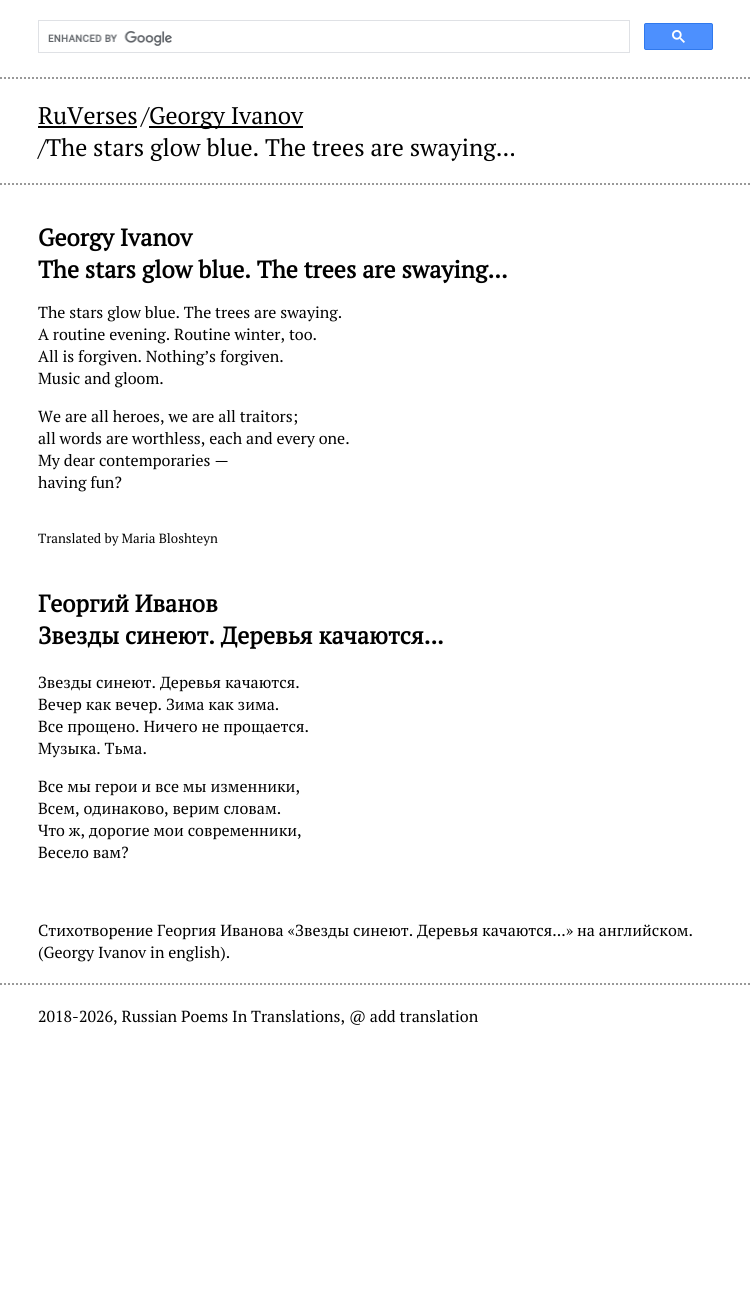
#include <cairo.h>
#include <math.h>
#include <stddef.h>

typedef struct { const char *family; double size; int italic, bold; unsigned color; } style_t;
static cairo_t *ctx;

static void ink(unsigned color) {
    cairo_set_source_rgb(ctx, (color >> 16) / 255.0, (color >> 8 & 255) / 255.0, (color & 255) / 255.0);
}

static void write(double x, double y, const char *s, const style_t *st) {
    cairo_select_font_face(ctx, st->family, st->italic ? CAIRO_FONT_SLANT_ITALIC : CAIRO_FONT_SLANT_NORMAL,
        st->bold ? CAIRO_FONT_WEIGHT_BOLD : CAIRO_FONT_WEIGHT_NORMAL);
    cairo_set_font_size(ctx, st->size);
    ink(st->color);
    cairo_move_to(ctx, x, y);
    cairo_show_text(ctx, s);
}

static void block(double x, double y, double w, double h, unsigned color) {
    ink(color);
    cairo_rectangle(ctx, x, y, w, h);
    cairo_fill(ctx);
}

static void round_path(double x, double y, double w, double h, double r) {
    cairo_new_sub_path(ctx);
    cairo_arc(ctx, x + w - r, y + h - r, r, 0, M_PI / 2);
    cairo_arc(ctx, x + r, y + h - r, r, M_PI / 2, M_PI);
    cairo_arc(ctx, x + r, y + r, r, M_PI, 1.5 * M_PI);
    cairo_arc(ctx, x + w - r, y + r, r, 1.5 * M_PI, 2 * M_PI);
    cairo_close_path(ctx);
}

static void paste(const char *path, double x, double y, double w, double h) {
    cairo_surface_t *image = cairo_image_surface_create_from_png(path);
    cairo_save(ctx);
    cairo_set_source_surface(ctx, image, x, y);
    cairo_rectangle(ctx, x, y, w, h);
    cairo_fill(ctx);
    cairo_restore(ctx);
    cairo_surface_destroy(image);
}

static const style_t s1 = {"PT Serif", 24, 0, 0, 0x000000};
static const style_t s2 = {"PT Serif", 24, 0, 1, 0x000000};
static const style_t s3 = {"PT Serif", 16, 0, 0, 0x000000};
static const style_t s4 = {"PT Serif", 13.25, 0, 0, 0x000000};

int main(void) {
    cairo_surface_t *surface = cairo_image_surface_create(CAIRO_FORMAT_RGB24, 750, 1296);
    ctx = cairo_create(surface);
    cairo_font_options_t *options = cairo_font_options_create();
    cairo_font_options_set_hint_metrics(options, CAIRO_HINT_METRICS_OFF);
    cairo_font_options_set_hint_style(options, CAIRO_HINT_STYLE_NONE);
    cairo_set_font_options(ctx, options);
    cairo_set_miter_limit(ctx, 4);
    ink(0xffffff);
    cairo_paint(ctx);
    cairo_new_path(ctx);
    cairo_move_to(ctx, 0, 78);
    cairo_line_to(ctx, 750, 78);
    ink(0x999999);
    cairo_set_dash(ctx, (double[]){2, 2}, 2, 0);
    cairo_stroke(ctx);
    cairo_rectangle(ctx, 38.5, 20.5, 591, 32);
    ink(0xdfe1e5);
    cairo_set_line_width(ctx, 1);
    cairo_set_dash(ctx, NULL, 0, 0);
    cairo_stroke(ctx);
    paste("pic1.png", 48, 31, 124, 15);
    ink(0x4d90fe);
    round_path(644.5, 23.5, 68, 26, 1.5);
    cairo_fill_preserve(ctx);
    ink(0x3079ed);
    cairo_stroke(ctx);
    paste("pic2.png", 672, 30, 13, 13);
    cairo_new_path(ctx);
    cairo_move_to(ctx, 0, 184);
    cairo_line_to(ctx, 750, 184);
    ink(0x999999);
    cairo_set_line_width(ctx, 2);
    cairo_set_dash(ctx, (double[]){2, 2}, 2, 0);
    cairo_stroke(ctx);
    write(38, 124, "RuVerses", &s1);
    block(38, 126, 99, 2, 0x000000);
    write(141, 124, "/", &s1);
    block(149, 126, 154, 2, 0x000000);
    write(149, 124, "Georgy Ivanov", &s1);
    write(38, 156, "/The stars glow blue. The trees are swaying...", &s1);
    write(38, 246, "Georgy Ivanov", &s2);
    write(38, 278, "The stars glow blue. The trees are swaying...", &s2);
    write(38, 318, "The stars glow blue. The trees are swaying.", &s3);
    write(38, 340, "A routine evening. Routine winter, too.", &s3);
    write(38, 362, "All is forgiven. Nothing’s forgiven.", &s3);
    write(38, 384, "Music and gloom.", &s3);
    write(38, 422, "We are all heroes, we are all traitors;", &s3);
    write(38, 444, "all words are worthless, each and every one.", &s3);
    write(38, 466, "My dear contemporaries —", &s3);
    write(38, 488, "having fun?", &s3);
    write(38, 543, "Translated by Maria Bloshteyn", &s4);
    write(38, 612, "Георгий Иванов", &s2);
    write(38, 644, "Звезды синеют. Деревья качаются...", &s2);
    write(38, 688, "Звезды синеют. Деревья качаются.", &s3);
    write(38, 710, "Вечер как вечер. Зима как зима.", &s3);
    write(38, 732, "Все прощено. Ничего не прощается.", &s3);
    write(38, 754, "Музыка. Тьма.", &s3);
    write(38, 792, "Все мы герои и все мы изменники,", &s3);
    write(38, 814, "Всем, одинаково, верим словам.", &s3);
    write(38, 836, "Что ж, дорогие мои современники,", &s3);
    write(38, 858, "Весело вам?", &s3);
    write(38, 936, "Стихотворение Георгия Иванова «Звезды синеют. Деревья качаются...» на английском.", &s3);
    write(38, 958, "(Georgy Ivanov in english).", &s3);
    cairo_new_path(ctx);
    cairo_move_to(ctx, 0, 984);
    cairo_line_to(ctx, 750, 984);
    ink(0x999999);
    cairo_stroke(ctx);
    write(38, 1022, "2018-2026, Russian Poems In Translations, @ add translation", &s3);
    cairo_surface_write_to_png(surface, "screenshot.png");
    cairo_font_options_destroy(options);
    cairo_destroy(ctx);
    cairo_surface_destroy(surface);
    return 0;
}
